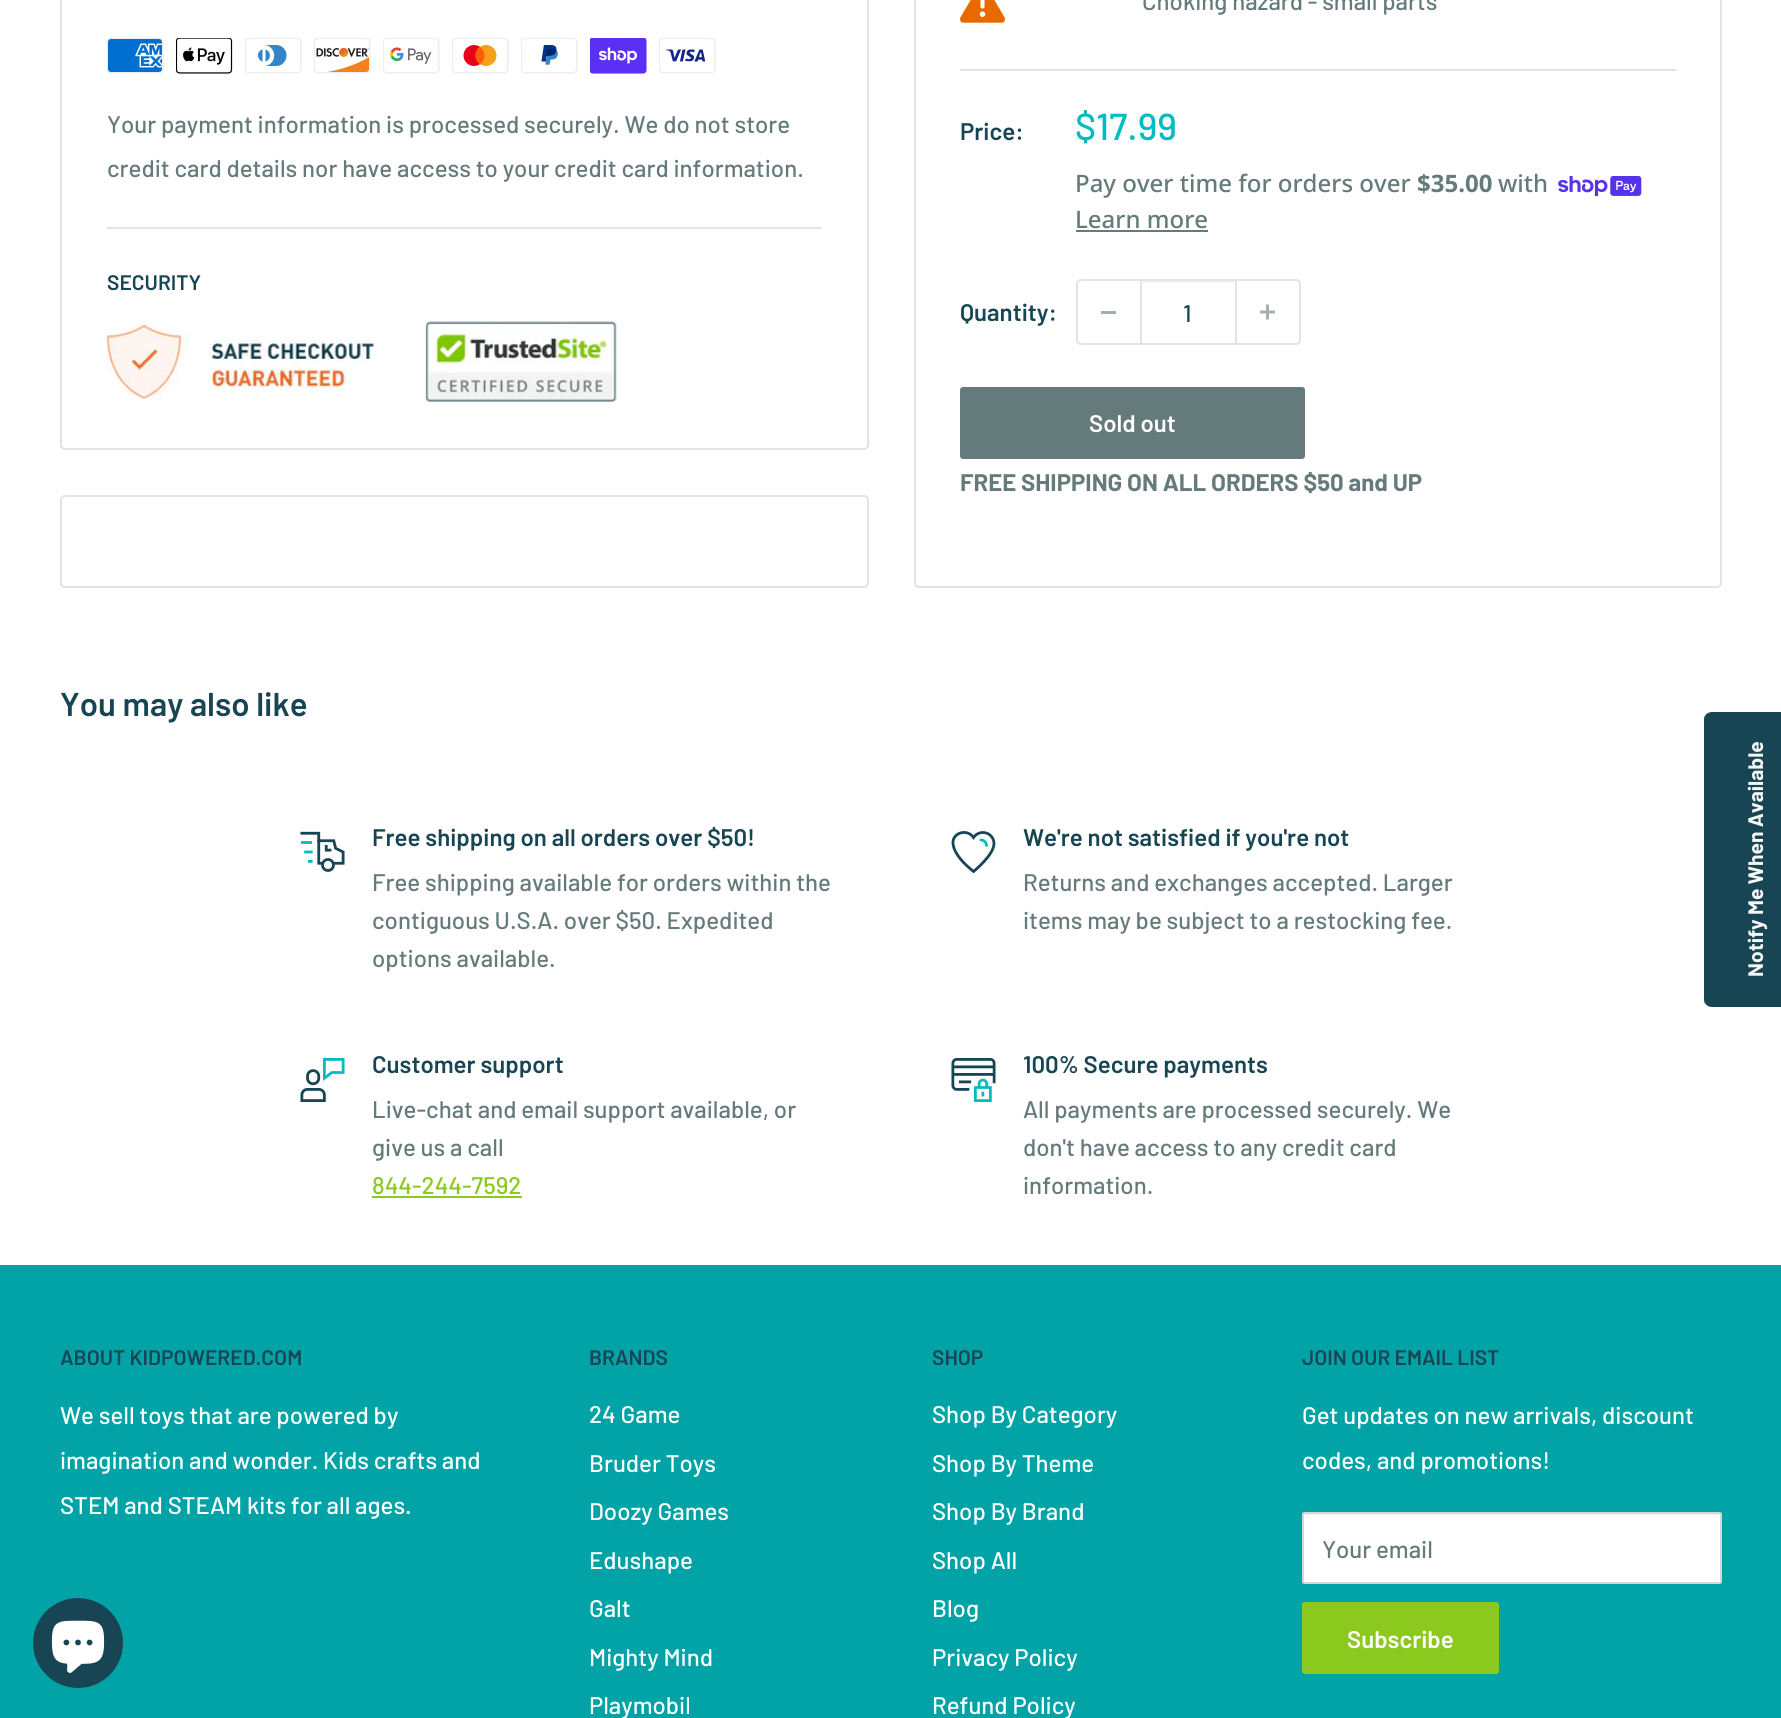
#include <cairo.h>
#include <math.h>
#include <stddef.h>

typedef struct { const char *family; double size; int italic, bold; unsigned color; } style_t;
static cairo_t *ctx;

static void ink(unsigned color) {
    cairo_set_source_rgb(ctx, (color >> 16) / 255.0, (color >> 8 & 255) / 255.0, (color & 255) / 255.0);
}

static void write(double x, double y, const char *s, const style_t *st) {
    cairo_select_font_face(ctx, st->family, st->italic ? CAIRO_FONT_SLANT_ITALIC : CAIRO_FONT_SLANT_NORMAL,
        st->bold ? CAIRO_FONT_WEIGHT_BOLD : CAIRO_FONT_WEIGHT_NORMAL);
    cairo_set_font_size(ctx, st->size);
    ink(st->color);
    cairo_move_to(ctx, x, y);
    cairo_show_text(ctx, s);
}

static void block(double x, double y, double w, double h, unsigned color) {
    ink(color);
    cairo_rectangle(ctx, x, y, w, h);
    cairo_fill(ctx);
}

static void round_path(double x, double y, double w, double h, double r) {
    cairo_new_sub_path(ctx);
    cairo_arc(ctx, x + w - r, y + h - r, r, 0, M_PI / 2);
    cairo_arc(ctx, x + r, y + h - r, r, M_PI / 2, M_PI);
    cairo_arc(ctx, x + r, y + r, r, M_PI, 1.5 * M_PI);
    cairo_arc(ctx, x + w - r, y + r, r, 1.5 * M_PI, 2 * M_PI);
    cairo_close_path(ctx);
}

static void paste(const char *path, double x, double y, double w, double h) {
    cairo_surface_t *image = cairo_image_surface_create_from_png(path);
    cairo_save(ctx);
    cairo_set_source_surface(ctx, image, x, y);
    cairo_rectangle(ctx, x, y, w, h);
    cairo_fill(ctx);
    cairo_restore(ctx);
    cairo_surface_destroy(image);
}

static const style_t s1 = {"Barlow Medium", 24, 0, 0, 0x657a7b};
static const style_t s2 = {"Barlow SemiBold", 21, 0, 0, 0x174553};
static const style_t s3 = {"Barlow SemiBold", 24, 0, 0, 0x174553};
static const style_t s4 = {"Barlow Medium", 37.5, 0, 0, 0x04bcc0};
static const style_t s5 = {"Noto Sans Medium", 24, 0, 0, 0x657a7b};
static const style_t s6 = {"Noto Sans", 24, 0, 1, 0x657a7b};
static const style_t s7 = {"Barlow Medium", 24, 0, 0, 0x174553};
static const style_t s8 = {"Barlow SemiBold", 24, 0, 0, 0xffffff};
static const style_t s9 = {"Barlow", 24, 0, 1, 0x657a7b};
static const style_t s10 = {"Barlow SemiBold", 33, 0, 0, 0x174553};
static const style_t s11 = {"Barlow Medium", 24, 0, 0, 0x8bc91f};
static const style_t s12 = {"Barlow", 21, 0, 1, 0xf7f7f7};
static const style_t s13 = {"Barlow Medium", 24, 0, 0, 0xffffff};

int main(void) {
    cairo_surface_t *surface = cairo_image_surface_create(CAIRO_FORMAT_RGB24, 1781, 1718);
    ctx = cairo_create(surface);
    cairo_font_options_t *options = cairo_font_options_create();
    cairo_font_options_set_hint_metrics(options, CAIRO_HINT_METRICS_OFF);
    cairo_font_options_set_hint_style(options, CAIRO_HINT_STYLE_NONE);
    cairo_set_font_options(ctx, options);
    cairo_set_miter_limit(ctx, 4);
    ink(0xffffff);
    cairo_paint(ctx);
    round_path(61, -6, 807, 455, 4);
    ink(0xe1e3e4);
    cairo_stroke(ctx);
    paste("pic1.png", 107, 38, 57, 36);
    paste("pic2.png", 176, 38, 57, 36);
    paste("pic3.png", 245, 38, 57, 36);
    paste("pic4.png", 314, 38, 57, 36);
    paste("pic5.png", 383, 38, 57, 36);
    paste("pic6.png", 452, 38, 57, 36);
    paste("pic7.png", 521, 38, 57, 36);
    paste("pic8.png", 590, 38, 57, 36);
    paste("pic9.png", 659, 38, 57, 36);
    write(107, 133, "Your payment information is processed securely. We do not store", &s1);
    write(107, 177, "credit card details nor have access to your credit card information.", &s1);
    block(107, 227, 715, 2, 0xe1e3e4);
    write(107, 290, "SECURITY", &s2);
    paste("pic10.png", 106, 320, 511, 83);
    round_path(915, -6, 806, 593, 4);
    ink(0xe1e3e4);
    cairo_stroke(ctx);
    paste("pic11.png", 960, 0, 45, 23);
    write(1142, 10, "Choking hazard - small parts", &s1);
    block(960, 69, 716, 2, 0xe1e3e4);
    write(960, 140, "Price:", &s3);
    write(1075, 140, "$17.99", &s4);
    write(1075, 192, "Pay over time for orders over", &s5);
    write(1417, 192, "$35.00", &s6);
    write(1498, 192, "with", &s5);
    paste("pic12.png", 1558, 176, 84, 21);
    write(1075, 228, "Learn more", &s5);
    block(1076, 230, 132, 2, 0x657a7b);
    write(960, 321, "Quantity:", &s3);
    round_path(1077, 280, 223, 64, 4);
    ink(0xe1e3e4);
    cairo_stroke(ctx);
    block(1101, 311, 15, 3, 0xa3afb0);
    block(1142, 281, 93, 2, 0xf3f4f4);
    block(1235, 281, 2, 63, 0xe1e3e4);
    block(1140, 281, 2, 63, 0xe1e3e4);
    write(1183, 322, "1", &s7);
    paste("pic13.png", 1260, 304, 15, 16);
    ink(0x657a7b);
    round_path(961, 388, 343, 70, 2);
    cairo_fill_preserve(ctx);
    cairo_stroke(ctx);
    write(1089, 432, "Sold out", &s8);
    write(960, 491, "FREE SHIPPING ON ALL ORDERS $50 and UP", &s9);
    round_path(61, 496, 807, 91, 4);
    ink(0xe1e3e4);
    cairo_stroke(ctx);
    write(60, 716, "You may also like", &s10);
    paste("pic14.png", 300, 831, 45, 41);
    write(372, 846, "Free shipping on all orders over $50!", &s3);
    write(372, 891, "Free shipping available for orders within the", &s1);
    write(372, 929, "contiguous U.S.A. over $50. Expedited", &s1);
    write(372, 967, "options available.", &s1);
    cairo_new_path(ctx);
    cairo_move_to(ctx, 983, 832.5);
    cairo_curve_to(ctx, 979, 832.5, 975.5, 834.5, 973.5, 837.5);
    cairo_curve_to(ctx, 967, 828, 952, 833, 953, 843.5);
    cairo_curve_to(ctx, 954, 854.5, 965.5, 865, 973.5, 871.5);
    cairo_curve_to(ctx, 973.5, 871.5, 994, 855, 994, 843.5);
    cairo_curve_to(ctx, 994, 837.5, 989, 832.5, 983, 832.5);
    cairo_close_path(ctx);
    ink(0x174553);
    cairo_set_line_width(ctx, 2.8);
    cairo_set_line_cap(ctx, CAIRO_LINE_CAP_SQUARE);
    cairo_stroke(ctx);
    cairo_new_path(ctx);
    cairo_move_to(ctx, 981, 840);
    cairo_curve_to(ctx, 984, 840, 986.5, 842.5, 986.5, 845.5);
    ink(0x04bcc0);
    cairo_set_line_cap(ctx, CAIRO_LINE_CAP_ROUND);
    cairo_stroke(ctx);
    write(1023, 846, "We're not satisfied if you're not", &s3);
    write(1023, 891, "Returns and exchanges accepted. Larger", &s1);
    write(1023, 929, "items may be subject to a restocking fee.", &s1);
    paste("pic15.png", 300, 1058, 45, 44);
    write(372, 1073, "Customer support", &s3);
    write(372, 1118, "Live-chat and email support available, or", &s1);
    write(372, 1156, "give us a call", &s1);
    write(372, 1194, "844-244-7592", &s11);
    block(372, 1196, 150, 2, 0x8bc91f);
    paste("pic16.png", 951, 1058, 45, 44);
    write(1023, 1073, "100% Secure payments", &s3);
    write(1023, 1118, "All payments are processed securely. We", &s1);
    write(1023, 1156, "don't have access to any credit card", &s1);
    write(1023, 1194, "information.", &s1);
    ink(0x174554);
    cairo_new_path(ctx);
    cairo_move_to(ctx, 1704, 1000);
    cairo_line_to(ctx, 1704, 719);
    cairo_curve_to(ctx, 1704, 715, 1708, 712, 1712, 712);
    cairo_line_to(ctx, 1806, 712);
    cairo_line_to(ctx, 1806, 1007);
    cairo_line_to(ctx, 1712, 1007);
    cairo_curve_to(ctx, 1708, 1007, 1704, 1004, 1704, 1000);
    cairo_close_path(ctx);
    cairo_fill(ctx);
    cairo_save(ctx);
    cairo_translate(ctx, 1763, 977);
    cairo_rotate(ctx, -90 * M_PI / 180);
    write(0, 0, "Notify Me When Available", &s12);
    cairo_restore(ctx);
    block(0, 1265, 1781, 453, 0x02a3a7);
    write(60, 1365, "ABOUT KIDPOWERED.COM", &s2);
    write(60, 1424, "We sell toys that are powered by", &s13);
    write(60, 1469, "imagination and wonder. Kids crafts and", &s13);
    write(60, 1514, "STEM and STEAM kits for all ages.", &s13);
    write(589, 1365, "BRANDS", &s2);
    write(589, 1423, "24 Game", &s13);
    write(589, 1472, "Bruder Toys", &s13);
    write(589, 1520, "Doozy Games", &s13);
    write(589, 1569, "Edushape", &s13);
    write(589, 1617, "Galt", &s13);
    write(589, 1666, "Mighty Mind", &s13);
    write(589, 1714, "Playmobil", &s13);
    write(932, 1365, "SHOP", &s2);
    write(932, 1423, "Shop By Category", &s13);
    write(932, 1472, "Shop By Theme", &s13);
    write(932, 1520, "Shop By Brand", &s13);
    write(932, 1569, "Shop All", &s13);
    write(932, 1617, "Blog", &s13);
    write(932, 1666, "Privacy Policy", &s13);
    write(932, 1714, "Refund Policy", &s13);
    write(1302, 1365, "JOIN OUR EMAIL LIST", &s2);
    write(1302, 1424, "Get updates on new arrivals, discount", &s13);
    write(1302, 1469, "codes, and promotions!", &s13);
    round_path(1302, 1512, 420, 72, 3);
    cairo_fill(ctx);
    ink(0xf8f8f8);
    cairo_new_path(ctx);
    cairo_move_to(ctx, 1305, 1515);
    cairo_line_to(ctx, 1719, 1515);
    cairo_curve_to(ctx, 1720, 1515, 1720, 1516, 1720, 1516);
    cairo_line_to(ctx, 1720, 1583);
    cairo_curve_to(ctx, 1721, 1583, 1721, 1582, 1721, 1582);
    cairo_line_to(ctx, 1721, 1516);
    cairo_curve_to(ctx, 1721, 1515, 1720, 1514, 1720, 1514);
    cairo_line_to(ctx, 1306, 1514);
    cairo_curve_to(ctx, 1305, 1514, 1304, 1515, 1304, 1516);
    cairo_close_path(ctx);
    cairo_fill(ctx);
    round_path(1303, 1513, 418, 70, 2);
    ink(0xd4d6d8);
    cairo_set_line_width(ctx, 2);
    cairo_set_line_cap(ctx, CAIRO_LINE_CAP_BUTT);
    cairo_stroke(ctx);
    write(1322, 1558, "Your email", &s1);
    ink(0x8bc91f);
    round_path(1302, 1602, 197, 72, 3);
    cairo_fill(ctx);
    write(1347, 1648, "Subscribe", &s8);
    ink(0x174553);
    cairo_new_path(ctx);
    cairo_arc(ctx, 78, 1643, 45, 0, 2 * M_PI);
    cairo_fill(ctx);
    paste("pic17.png", 51, 1620, 54, 53);
    cairo_surface_write_to_png(surface, "screenshot.png");
    cairo_font_options_destroy(options);
    cairo_destroy(ctx);
    cairo_surface_destroy(surface);
    return 0;
}
